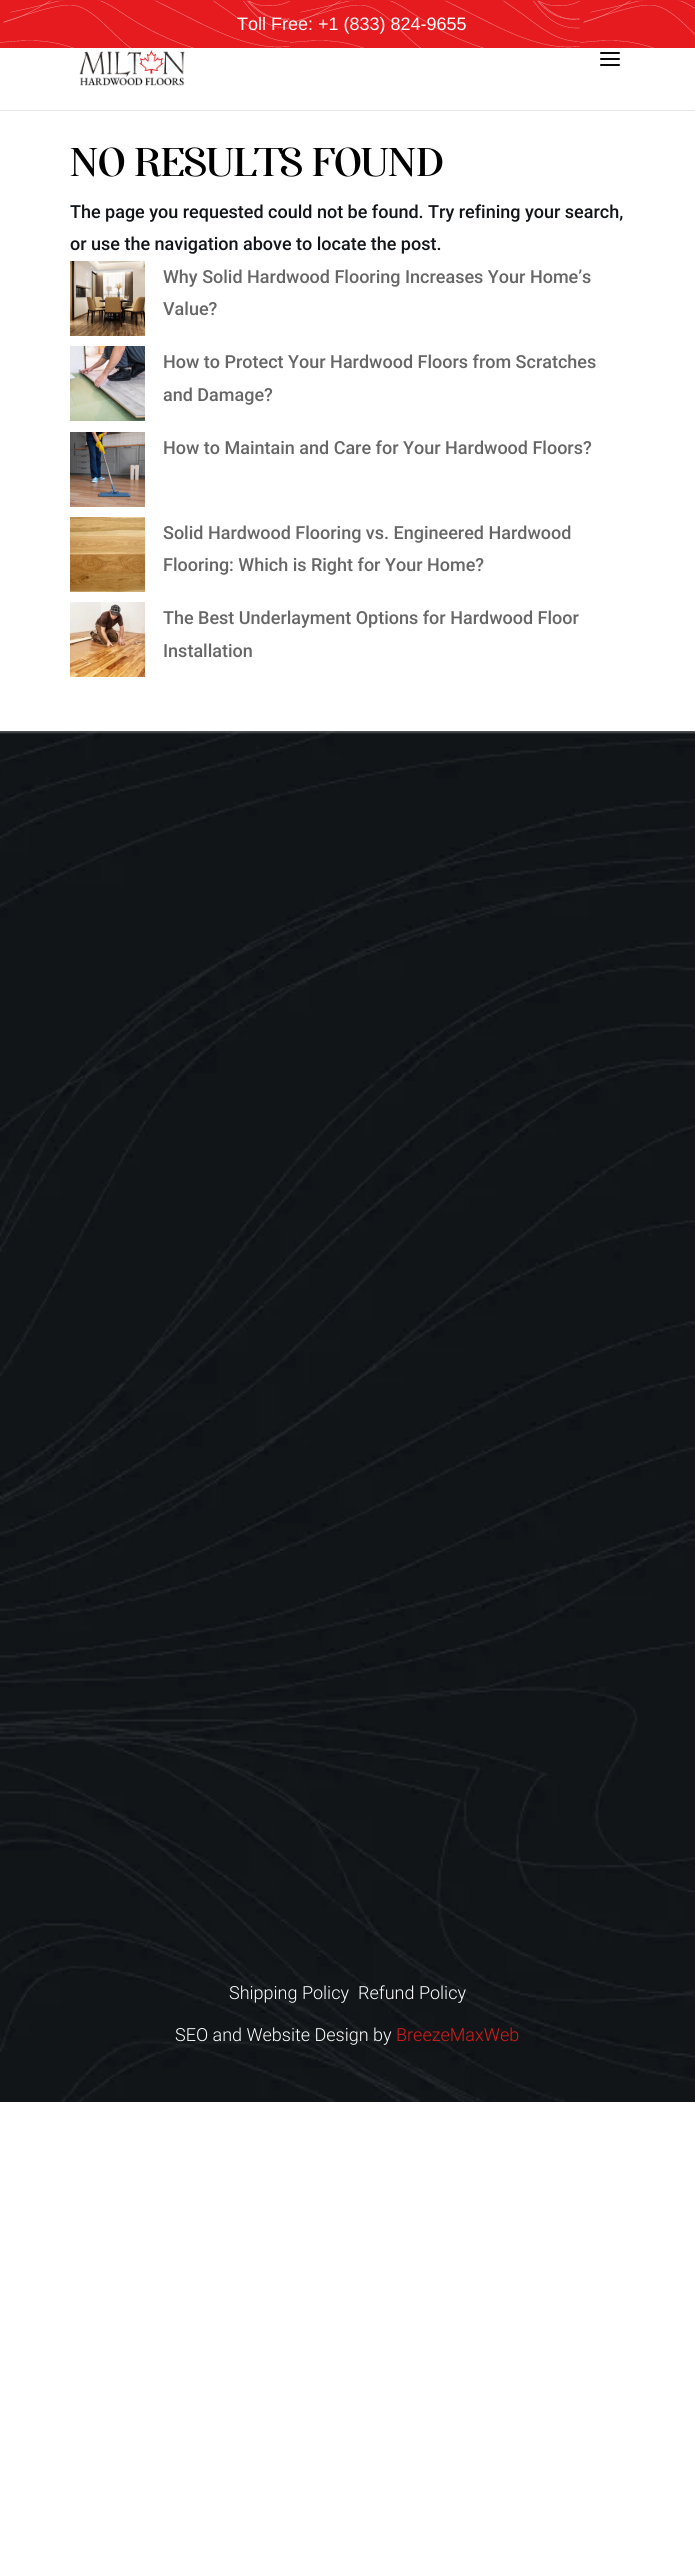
#include <cairo.h>
#include <math.h>
#include <stddef.h>

typedef struct { const char *family; double size; int italic, bold; unsigned color; } style_t;
static cairo_t *ctx;

static void ink(unsigned color) {
    cairo_set_source_rgb(ctx, (color >> 16) / 255.0, (color >> 8 & 255) / 255.0, (color & 255) / 255.0);
}

static void write(double x, double y, const char *s, const style_t *st) {
    cairo_select_font_face(ctx, st->family, st->italic ? CAIRO_FONT_SLANT_ITALIC : CAIRO_FONT_SLANT_NORMAL,
        st->bold ? CAIRO_FONT_WEIGHT_BOLD : CAIRO_FONT_WEIGHT_NORMAL);
    cairo_set_font_size(ctx, st->size);
    ink(st->color);
    cairo_move_to(ctx, x, y);
    cairo_show_text(ctx, s);
}

static void block(double x, double y, double w, double h, unsigned color) {
    ink(color);
    cairo_rectangle(ctx, x, y, w, h);
    cairo_fill(ctx);
}

static void paste(const char *path, double x, double y, double w, double h) {
    cairo_surface_t *image = cairo_image_surface_create_from_png(path);
    cairo_save(ctx);
    cairo_set_source_surface(ctx, image, x, y);
    cairo_rectangle(ctx, x, y, w, h);
    cairo_fill(ctx);
    cairo_restore(ctx);
    cairo_surface_destroy(image);
}

static const style_t s1 = {"Liberation Sans", 18, 0, 0, 0xffffff};
static const style_t s2 = {"Roboto Medium", 18, 0, 0, 0x111519};
static const style_t s3 = {"Roboto Medium", 18, 0, 0, 0x666666};
static const style_t s4 = {"Roboto Light", 18, 0, 0, 0xffffff};
static const style_t s5 = {"Roboto Light", 18, 0, 0, 0xd81a1a};

int main(void) {
    cairo_surface_t *surface = cairo_image_surface_create(CAIRO_FORMAT_RGB24, 695, 2576);
    ctx = cairo_create(surface);
    cairo_font_options_t *options = cairo_font_options_create();
    cairo_font_options_set_hint_metrics(options, CAIRO_HINT_METRICS_OFF);
    cairo_font_options_set_hint_style(options, CAIRO_HINT_STYLE_NONE);
    cairo_set_font_options(ctx, options);
    cairo_set_miter_limit(ctx, 4);
    ink(0xffffff);
    cairo_paint(ctx);
    block(0, 0, 695, 48, 0xe51b20);
    paste("pic1.png", 0, 0, 695, 48);
    write(237, 30, "Toll Free: +1 (833) 824-9655", &s1);
    block(0, 110, 695, 1, 0xe6e6e6);
    paste("pic2.png", 79, 50, 106, 36);
    paste("pic3.png", 600, 52, 20, 14);
    paste("pic4.png", 70, 147, 373, 30);
    write(70, 218, "The page you requested could not be found. Try refining your search,", &s2);
    write(70, 250, "or use the navigation above to locate the post.", &s2);
    paste("pic5.png", 70, 261, 75, 75);
    write(163, 283, "Why Solid Hardwood Flooring Increases Your Home’s", &s3);
    write(163, 315, "Value?", &s3);
    paste("pic6.png", 70, 346, 75, 75);
    write(163, 368, "How to Protect Your Hardwood Floors from Scratches", &s3);
    write(163, 401, "and Damage?", &s3);
    paste("pic7.png", 70, 432, 75, 75);
    write(163, 454, "How to Maintain and Care for Your Hardwood Floors?", &s3);
    paste("pic8.png", 70, 517, 75, 75);
    write(163, 539, "Solid Hardwood Flooring vs. Engineered Hardwood", &s3);
    write(163, 571, "Flooring: Which is Right for Your Home?", &s3);
    paste("pic9.png", 70, 602, 75, 75);
    write(163, 624, "The Best Underlayment Options for Hardwood Floor", &s3);
    write(163, 657, "Installation", &s3);
    paste("pic10.png", 0, 731, 695, 1371);
    write(229, 1999, "Shipping Policy", &s4);
    write(358, 1999, "Refund Policy", &s4);
    write(175, 2041, "SEO and Website Design by", &s4);
    write(396, 2041, "BreezeMaxWeb", &s5);
    cairo_surface_write_to_png(surface, "screenshot.png");
    cairo_font_options_destroy(options);
    cairo_destroy(ctx);
    cairo_surface_destroy(surface);
    return 0;
}
